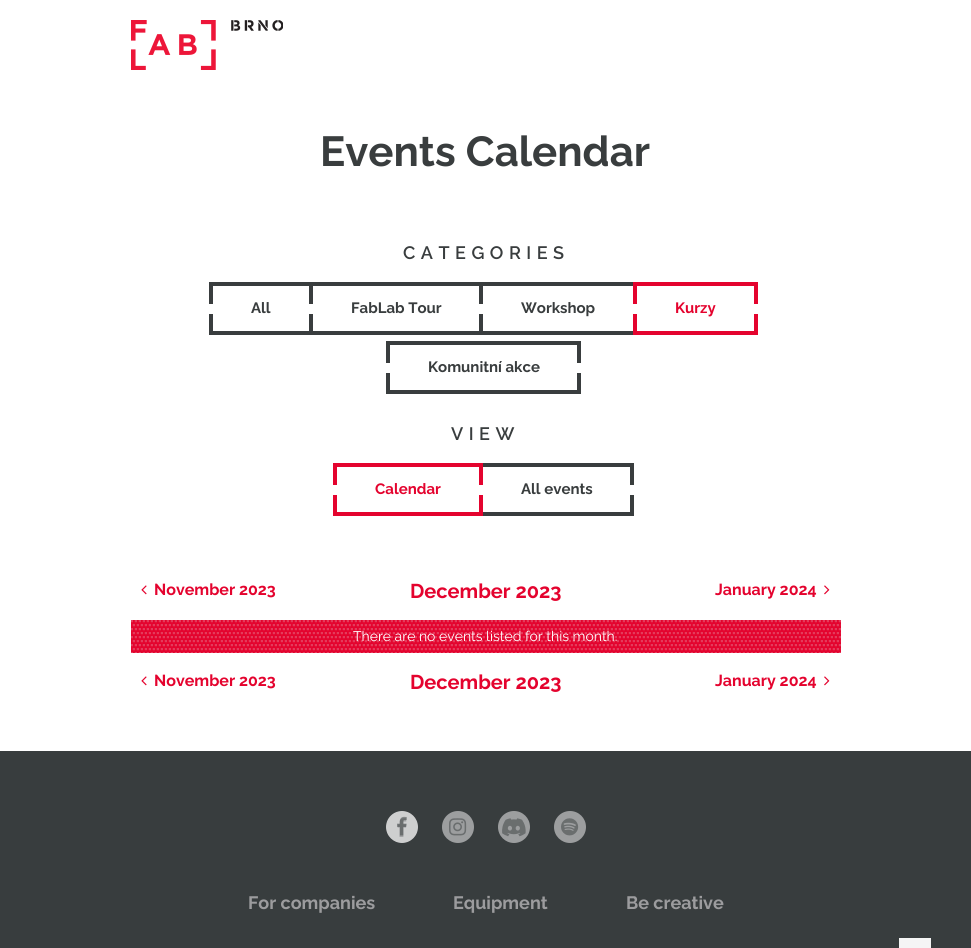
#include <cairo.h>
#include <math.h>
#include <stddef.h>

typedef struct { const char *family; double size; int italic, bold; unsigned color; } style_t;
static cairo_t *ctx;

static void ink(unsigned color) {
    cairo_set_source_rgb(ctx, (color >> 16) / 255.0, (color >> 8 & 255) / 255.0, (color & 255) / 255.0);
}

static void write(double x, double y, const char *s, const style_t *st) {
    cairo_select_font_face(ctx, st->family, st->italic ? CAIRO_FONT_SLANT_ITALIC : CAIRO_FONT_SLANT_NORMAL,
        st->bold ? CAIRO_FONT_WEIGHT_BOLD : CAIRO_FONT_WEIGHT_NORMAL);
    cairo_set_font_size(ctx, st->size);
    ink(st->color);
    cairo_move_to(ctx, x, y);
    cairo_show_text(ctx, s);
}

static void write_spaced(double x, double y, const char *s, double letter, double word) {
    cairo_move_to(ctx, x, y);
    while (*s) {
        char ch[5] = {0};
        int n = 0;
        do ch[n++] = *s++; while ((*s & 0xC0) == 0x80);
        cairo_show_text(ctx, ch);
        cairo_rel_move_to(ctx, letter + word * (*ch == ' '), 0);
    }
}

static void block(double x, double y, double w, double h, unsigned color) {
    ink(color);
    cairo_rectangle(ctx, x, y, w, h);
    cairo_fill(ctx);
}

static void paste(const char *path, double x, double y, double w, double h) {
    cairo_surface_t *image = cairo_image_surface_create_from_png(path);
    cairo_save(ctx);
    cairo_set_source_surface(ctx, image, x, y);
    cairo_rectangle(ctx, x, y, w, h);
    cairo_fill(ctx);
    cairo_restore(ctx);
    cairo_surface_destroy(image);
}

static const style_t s1 = {"Raleway", 42, 0, 1, 0x393d3e};
static const style_t s2 = {"Raleway", 15, 0, 1, 0x393d3e};
static const style_t s3 = {"Raleway", 15, 0, 1, 0xe4032e};
static const style_t s4 = {"Raleway", 16, 0, 1, 0xe4032e};
static const style_t s5 = {"Raleway", 20, 0, 1, 0xe4032e};
static const style_t s6 = {"Raleway", 14, 0, 0, 0xffffff};
static const style_t s7 = {"Raleway", 18, 0, 1, 0x9c9c9e};

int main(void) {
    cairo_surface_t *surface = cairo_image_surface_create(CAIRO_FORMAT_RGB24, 971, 948);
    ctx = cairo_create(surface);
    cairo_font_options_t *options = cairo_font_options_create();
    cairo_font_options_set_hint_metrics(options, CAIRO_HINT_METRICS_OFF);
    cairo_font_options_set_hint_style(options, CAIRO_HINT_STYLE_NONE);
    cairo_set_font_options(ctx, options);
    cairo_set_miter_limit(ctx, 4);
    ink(0xffffff);
    cairo_paint(ctx);
    paste("pic1.png", 131, 20, 152, 50);
    write(320, 166, "Events Calendar", &s1);
    cairo_select_font_face(ctx, "Raleway SemiBold", CAIRO_FONT_SLANT_NORMAL, CAIRO_FONT_WEIGHT_NORMAL);
    cairo_set_font_size(ctx, 18);
    write_spaced(403, 259, "CATEGORIES", 5.5, 0);
    cairo_rectangle(ctx, 211, 284, 100, 49);
    cairo_set_line_width(ctx, 4);
    cairo_stroke(ctx);
    block(209, 304, 4, 10, 0xffffff);
    write(251, 313, "All", &s2);
    cairo_rectangle(ctx, 311, 284, 170, 49);
    cairo_stroke(ctx);
    block(309, 304, 4, 10, 0xffffff);
    write(351, 313, "FabLab Tour", &s2);
    cairo_rectangle(ctx, 481, 284, 154, 49);
    cairo_stroke(ctx);
    block(479, 304, 4, 10, 0xffffff);
    write(521, 313, "Workshop", &s2);
    cairo_rectangle(ctx, 635, 284, 121, 49);
    ink(0xe4032e);
    cairo_stroke(ctx);
    block(633, 304, 125, 10, 0xffffff);
    write(675, 313, "Kurzy", &s3);
    cairo_rectangle(ctx, 388, 343, 191, 49);
    ink(0x393d3e);
    cairo_stroke(ctx);
    block(386, 363, 195, 10, 0xffffff);
    write(428, 372, "Komunitní akce", &s2);
    cairo_select_font_face(ctx, "Raleway SemiBold", CAIRO_FONT_SLANT_NORMAL, CAIRO_FONT_WEIGHT_NORMAL);
    cairo_set_font_size(ctx, 18);
    write_spaced(451, 440, "VIEW", 5.5, 0);
    cairo_rectangle(ctx, 481, 465, 151, 49);
    cairo_stroke(ctx);
    cairo_rectangle(ctx, 335, 465, 146, 49);
    ink(0xe4032e);
    cairo_stroke(ctx);
    block(333, 485, 150, 10, 0xffffff);
    write(375, 494, "Calendar", &s3);
    write(521, 494, "All events", &s2);
    block(630, 485, 4, 10, 0xffffff);
    paste("pic2.png", 141, 585, 6, 10);
    write(154, 595, "November 2023", &s4);
    write(410, 598, "December 2023", &s5);
    write(715, 595, "January 2024", &s4);
    paste("pic3.png", 824, 585, 6, 10);
    paste("pic4.png", 131, 620, 710, 33);
    write(353, 641, "There are no events listed for this month.", &s6);
    paste("pic2.png", 141, 676, 6, 10);
    write(154, 686, "November 2023", &s4);
    write(410, 689, "December 2023", &s5);
    write(715, 686, "January 2024", &s4);
    paste("pic3.png", 824, 676, 6, 10);
    block(0, 751, 971, 197, 0x383d3e);
    ink(0x9c9e9f);
    cairo_arc(ctx, 402, 827, 16, 0, 2 * M_PI);
    cairo_fill(ctx);
    paste("pic5.png", 386, 811, 32, 32);
    paste("pic6.png", 397, 816, 10, 20);
    cairo_arc(ctx, 458, 827, 16, 0, 2 * M_PI);
    cairo_fill(ctx);
    paste("pic7.png", 449, 818, 18, 18);
    cairo_arc(ctx, 514, 827, 16, 0, 2 * M_PI);
    cairo_fill(ctx);
    paste("pic8.png", 502, 818, 24, 19);
    cairo_arc(ctx, 570, 827, 16, 0, 2 * M_PI);
    cairo_fill(ctx);
    paste("pic9.png", 561, 818, 18, 18);
    write(248, 909, "For companies", &s7);
    write(453, 909, "Equipment", &s7);
    write(626, 909, "Be creative", &s7);
    block(899, 938, 32, 10, 0xf5f5f5);
    cairo_surface_write_to_png(surface, "screenshot.png");
    cairo_font_options_destroy(options);
    cairo_destroy(ctx);
    cairo_surface_destroy(surface);
    return 0;
}
